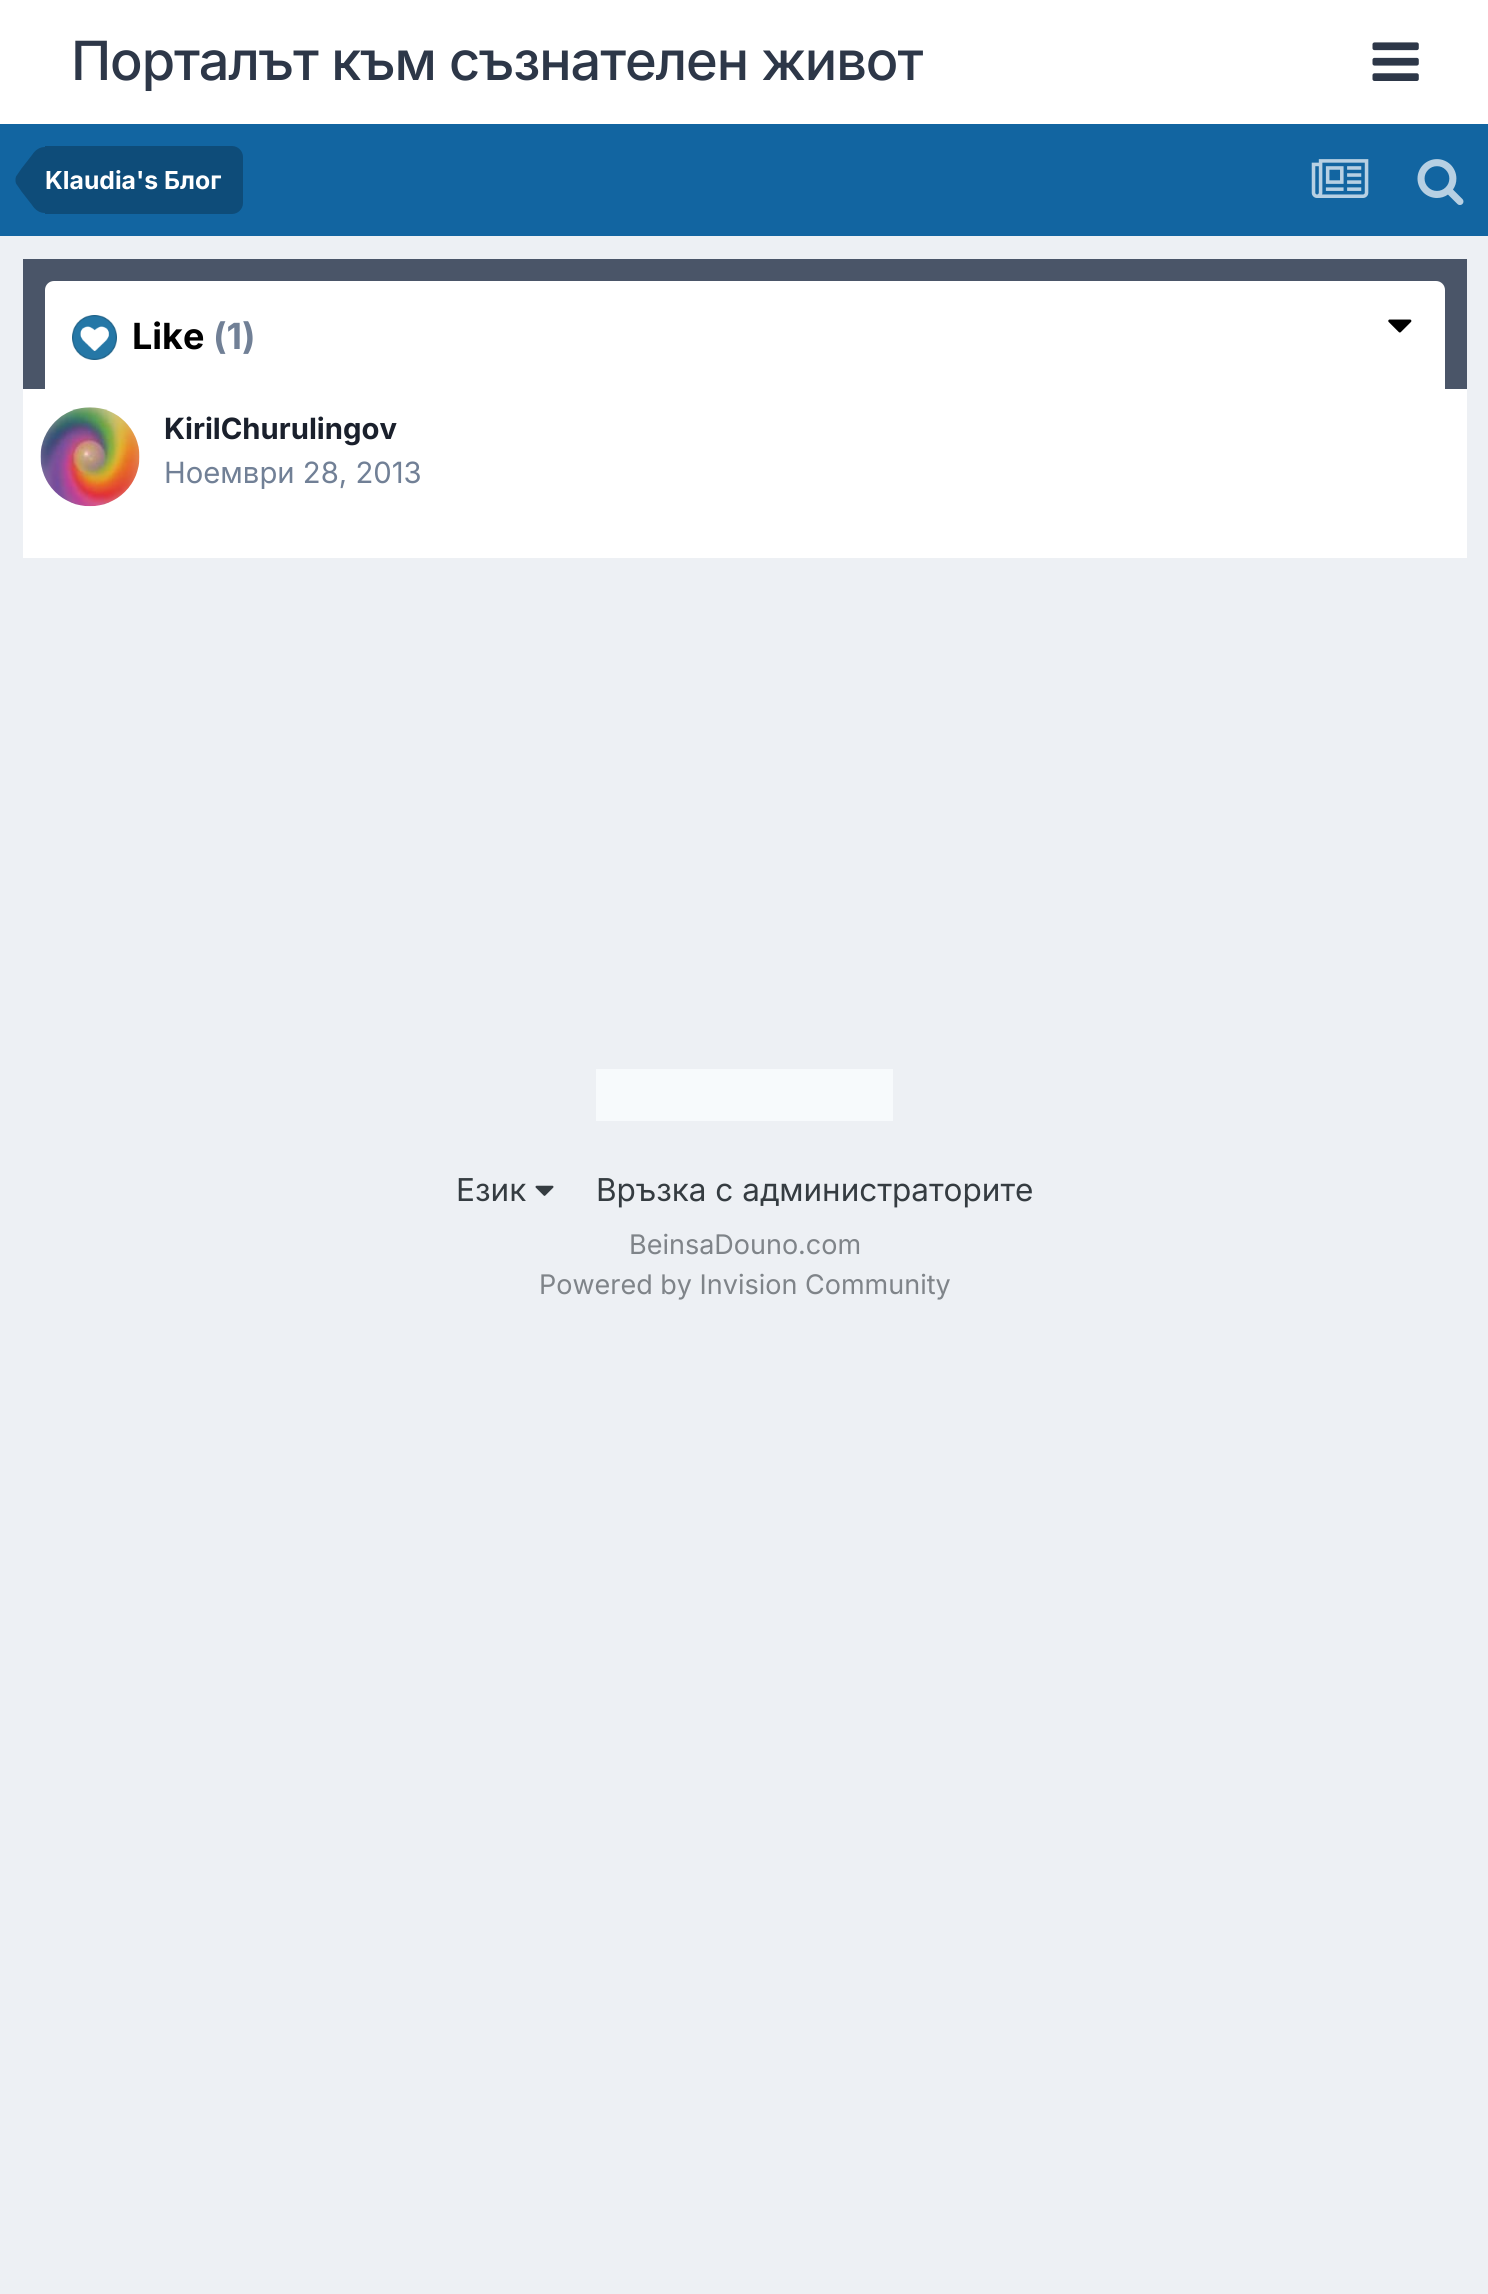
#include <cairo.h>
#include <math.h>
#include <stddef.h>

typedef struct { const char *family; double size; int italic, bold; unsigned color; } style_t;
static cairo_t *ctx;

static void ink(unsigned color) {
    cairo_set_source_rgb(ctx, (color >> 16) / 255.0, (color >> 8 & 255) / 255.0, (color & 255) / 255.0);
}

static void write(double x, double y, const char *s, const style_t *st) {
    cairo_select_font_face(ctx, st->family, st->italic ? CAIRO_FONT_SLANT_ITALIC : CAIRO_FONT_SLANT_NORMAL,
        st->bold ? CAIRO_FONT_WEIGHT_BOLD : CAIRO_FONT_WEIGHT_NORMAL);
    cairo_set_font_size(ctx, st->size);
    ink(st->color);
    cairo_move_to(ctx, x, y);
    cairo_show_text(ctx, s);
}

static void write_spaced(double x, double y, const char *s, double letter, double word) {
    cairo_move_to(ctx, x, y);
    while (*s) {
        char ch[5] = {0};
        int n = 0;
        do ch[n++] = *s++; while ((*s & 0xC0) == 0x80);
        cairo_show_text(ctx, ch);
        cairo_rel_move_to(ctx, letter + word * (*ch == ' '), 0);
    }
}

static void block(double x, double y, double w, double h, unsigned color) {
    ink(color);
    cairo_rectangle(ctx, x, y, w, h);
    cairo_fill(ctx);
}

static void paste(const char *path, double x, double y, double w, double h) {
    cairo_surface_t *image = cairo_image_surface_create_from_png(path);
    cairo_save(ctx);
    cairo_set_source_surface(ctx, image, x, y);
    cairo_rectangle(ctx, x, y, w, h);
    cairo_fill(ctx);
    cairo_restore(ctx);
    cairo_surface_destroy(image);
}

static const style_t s1 = {"Inter", 24.75, 0, 1, 0xffffff};
static const style_t s2 = {"Inter", 36, 0, 1, 0x000000};
static const style_t s3 = {"Inter", 36, 0, 1, 0x718096};
static const style_t s4 = {"Inter", 29.25, 0, 1, 0x1a202c};
static const style_t s5 = {"Inter", 29.25, 0, 0, 0x718096};
static const style_t s6 = {"Inter", 31.5, 0, 0, 0x353c41};
static const style_t s7 = {"Inter", 27, 0, 0, 0x7f8489};

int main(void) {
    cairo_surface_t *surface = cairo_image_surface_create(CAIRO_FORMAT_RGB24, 1488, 2294);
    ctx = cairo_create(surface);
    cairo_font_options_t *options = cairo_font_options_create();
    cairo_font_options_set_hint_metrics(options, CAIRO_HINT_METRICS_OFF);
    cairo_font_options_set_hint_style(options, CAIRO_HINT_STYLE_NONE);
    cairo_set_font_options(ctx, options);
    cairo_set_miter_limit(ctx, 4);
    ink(0xedf0f4);
    cairo_paint(ctx);
    block(0, 0, 1488, 124, 0xffffff);
    cairo_select_font_face(ctx, "Inter Medium", CAIRO_FONT_SLANT_NORMAL, CAIRO_FONT_WEIGHT_NORMAL);
    cairo_set_font_size(ctx, 54);
    ink(0x2d3748);
    write_spaced(71, 80, "Порталът към съзнателен живот", -1.1, 0);
    paste("pic1.png", 1372, 42, 47, 39);
    block(0, 124, 1488, 112, 0x1265a1);
    ink(0x0e4c79);
    cairo_new_path(ctx);
    cairo_move_to(ctx, 45, 146);
    cairo_line_to(ctx, 232, 146);
    cairo_curve_to(ctx, 238, 146, 243, 151, 243, 157);
    cairo_line_to(ctx, 243, 203);
    cairo_curve_to(ctx, 243, 209, 238, 214, 232, 214);
    cairo_line_to(ctx, 45, 214);
    cairo_close_path(ctx);
    cairo_fill(ctx);
    cairo_new_path(ctx);
    cairo_move_to(ctx, 45, 180);
    cairo_line_to(ctx, 45, 213);
    cairo_curve_to(ctx, 40, 213, 35.5, 210.5, 32, 205);
    cairo_line_to(ctx, 21.5, 191.5);
    cairo_line_to(ctx, 16, 183.5);
    cairo_curve_to(ctx, 15.5, 182, 15.5, 181, 15.5, 180);
    cairo_close_path(ctx);
    cairo_fill(ctx);
    cairo_new_path(ctx);
    cairo_move_to(ctx, 45, 180);
    cairo_line_to(ctx, 15.5, 180);
    cairo_curve_to(ctx, 15.5, 179, 15.5, 178, 16, 176.5);
    cairo_line_to(ctx, 21.5, 168.5);
    cairo_line_to(ctx, 32, 155);
    cairo_curve_to(ctx, 35.5, 149.5, 40, 147, 45, 147);
    cairo_close_path(ctx);
    cairo_fill(ctx);
    write(45, 189, "Klaudia's Блог", &s1);
    paste("pic2.png", 1311, 159, 58, 39);
    paste("pic3.png", 1417, 159, 47, 46);
    block(23, 259, 1444, 130, 0x4a5568);
    ink(0xffffff);
    cairo_new_path(ctx);
    cairo_move_to(ctx, 54, 281);
    cairo_line_to(ctx, 1436, 281);
    cairo_curve_to(ctx, 1441, 281, 1445, 285, 1445, 290);
    cairo_line_to(ctx, 1445, 389);
    cairo_line_to(ctx, 45, 389);
    cairo_line_to(ctx, 45, 290);
    cairo_curve_to(ctx, 45, 285, 49, 281, 54, 281);
    cairo_close_path(ctx);
    cairo_fill(ctx);
    paste("pic4.png", 72, 315, 45, 45);
    write(132, 349, "Like", &s2);
    write(213, 349, "(1)", &s3);
    paste("pic5.png", 1388, 319, 24, 14);
    block(23, 389, 1444, 169, 0xffffff);
    paste("pic6.png", 40, 407, 100, 100);
    write(164, 439, "KirilChurulingov", &s4);
    write(164, 483, "Ноември 28, 2013", &s5);
    block(596, 1069, 297, 52, 0xf7fafc);
    write(456, 1201, "Език", &s6);
    paste("pic7.png", 535, 1185, 19, 11);
    write(596, 1201, "Връзка с администраторите", &s6);
    write(629, 1254, "BeinsaDouno.com", &s7);
    write(539, 1294, "Powered by Invision Community", &s7);
    cairo_surface_write_to_png(surface, "screenshot.png");
    cairo_font_options_destroy(options);
    cairo_destroy(ctx);
    cairo_surface_destroy(surface);
    return 0;
}
